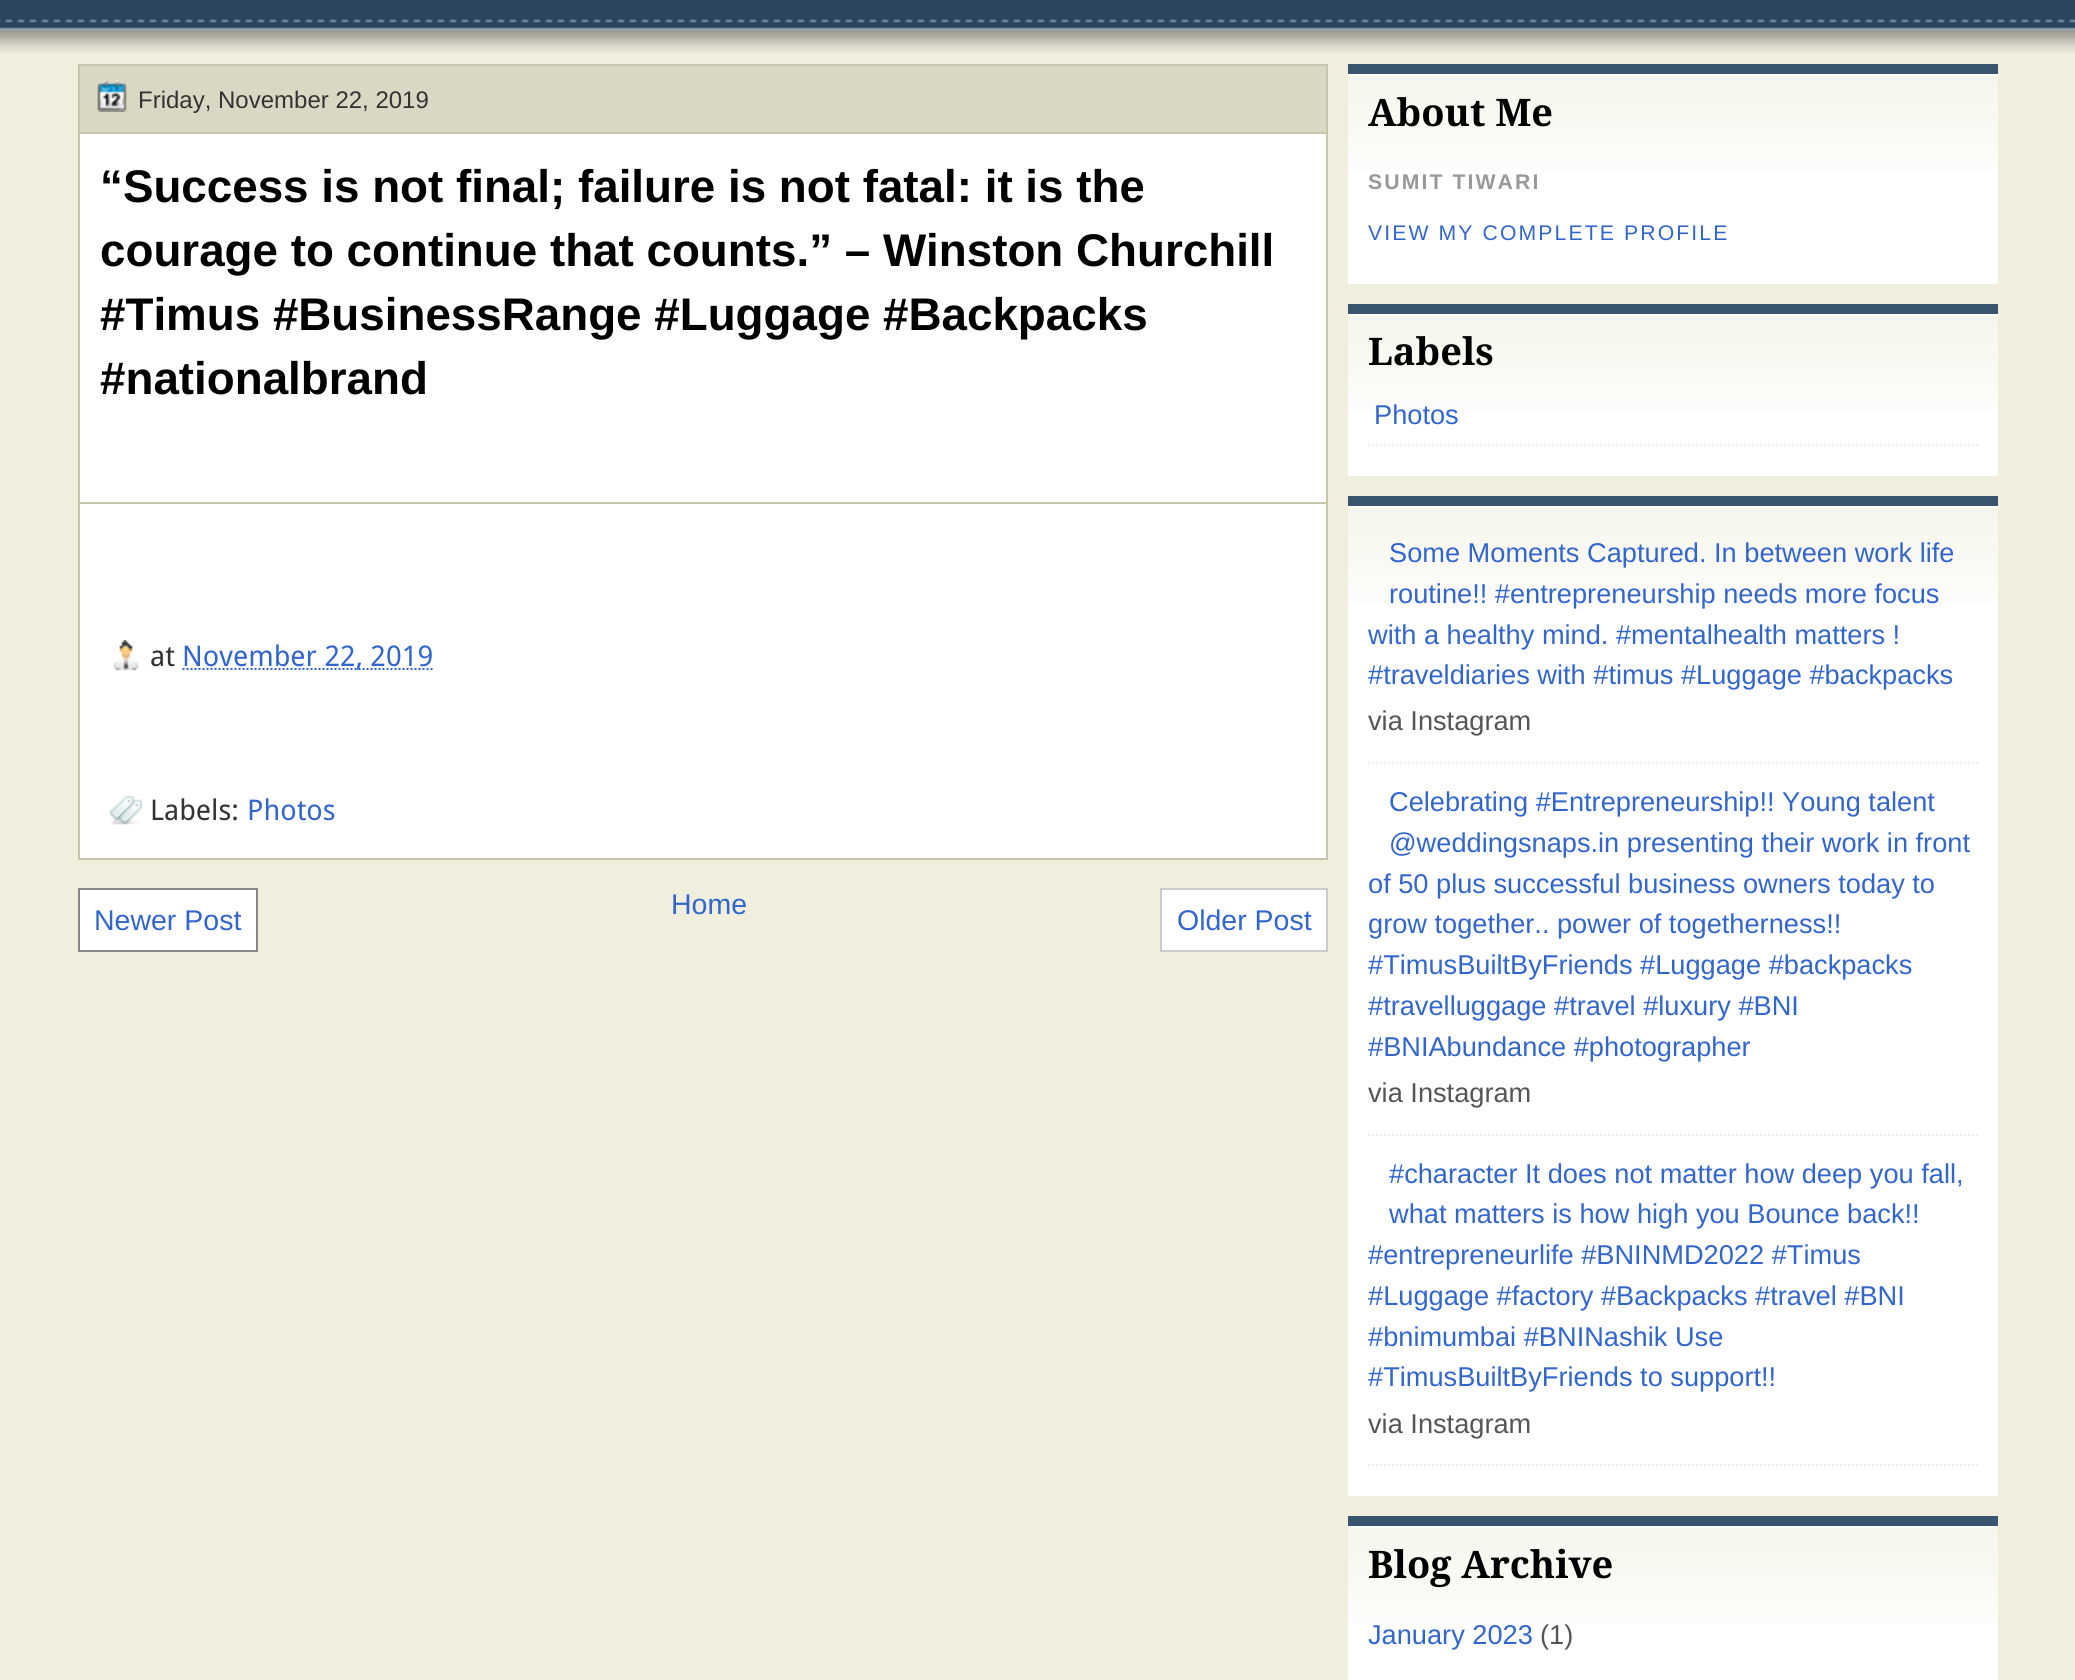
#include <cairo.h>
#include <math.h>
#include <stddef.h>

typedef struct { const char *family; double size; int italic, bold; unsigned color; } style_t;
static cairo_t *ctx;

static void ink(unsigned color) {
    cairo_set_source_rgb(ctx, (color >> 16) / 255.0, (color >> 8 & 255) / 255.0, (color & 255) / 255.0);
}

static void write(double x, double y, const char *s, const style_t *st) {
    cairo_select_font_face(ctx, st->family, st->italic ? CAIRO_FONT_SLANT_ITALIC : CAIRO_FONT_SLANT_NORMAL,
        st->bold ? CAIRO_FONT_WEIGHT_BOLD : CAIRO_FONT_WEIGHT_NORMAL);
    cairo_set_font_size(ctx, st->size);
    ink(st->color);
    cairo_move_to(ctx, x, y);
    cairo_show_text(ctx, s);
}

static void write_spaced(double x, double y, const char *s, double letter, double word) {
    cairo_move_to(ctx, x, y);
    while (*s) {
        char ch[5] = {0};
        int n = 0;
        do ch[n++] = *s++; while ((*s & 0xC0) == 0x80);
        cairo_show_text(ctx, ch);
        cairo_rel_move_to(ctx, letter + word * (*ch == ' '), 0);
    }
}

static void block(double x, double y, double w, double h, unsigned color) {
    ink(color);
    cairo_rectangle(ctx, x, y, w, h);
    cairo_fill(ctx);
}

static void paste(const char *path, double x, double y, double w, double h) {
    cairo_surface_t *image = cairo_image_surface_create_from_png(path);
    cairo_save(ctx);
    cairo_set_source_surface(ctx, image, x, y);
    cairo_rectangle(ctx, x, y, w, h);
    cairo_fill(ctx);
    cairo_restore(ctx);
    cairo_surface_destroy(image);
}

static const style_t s1 = {"Liberation Sans", 24, 0, 0, 0x333333};
static const style_t s2 = {"Liberation Sans", 45.75, 0, 1, 0x000000};
static const style_t s3 = {"Droid Sans", 28.5, 0, 0, 0x333333};
static const style_t s4 = {"Droid Sans", 28.5, 0, 0, 0x3366cc};
static const style_t s5 = {"Liberation Sans", 28.5, 0, 0, 0x3366cc};
static const style_t s6 = {"Droid Serif", 38, 0, 1, 0x000000};
static const style_t s7 = {"Liberation Sans", 27.2, 0, 0, 0x3366cc};
static const style_t s8 = {"Liberation Sans", 27.2, 0, 0, 0x555555};

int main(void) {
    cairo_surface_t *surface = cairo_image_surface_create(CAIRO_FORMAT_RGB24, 2075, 1680);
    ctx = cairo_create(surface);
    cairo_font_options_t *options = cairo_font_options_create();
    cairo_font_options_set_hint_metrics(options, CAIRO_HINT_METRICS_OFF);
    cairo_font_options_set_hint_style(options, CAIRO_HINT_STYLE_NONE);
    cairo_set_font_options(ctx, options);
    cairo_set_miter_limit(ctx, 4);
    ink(0xf0eedd);
    cairo_paint(ctx);
    paste("pic1.png", 0, 0, 2075, 54);
    block(80, 66, 1246, 66, 0xdad8c4);
    paste("pic2.png", 97, 80, 30, 32);
    cairo_rectangle(ctx, 79, 65, 1248, 68);
    ink(0xc8c5ad);
    cairo_stroke(ctx);
    write(138, 108, "Friday, November 22, 2019", &s1);
    ink(0xffffff);
    cairo_rectangle(ctx, 79, 133, 1248, 726);
    cairo_fill_preserve(ctx);
    ink(0xc8c5ad);
    cairo_stroke(ctx);
    write(100, 202, "“Success is not final; failure is not fatal: it is the", &s2);
    write(100, 266, "courage to continue that counts.” – Winston Churchill", &s2);
    write(100, 330, "#Timus #BusinessRange #Luggage #Backpacks", &s2);
    write(100, 394, "#nationalbrand", &s2);
    block(80, 502, 1246, 2, 0xc8c5ad);
    paste("pic3.png", 113, 640, 26, 31);
    write(150, 666, "at", &s3);
    cairo_new_path(ctx);
    cairo_move_to(ctx, 182.5, 669);
    cairo_line_to(ctx, 434, 669);
    ink(0x3366cc);
    cairo_set_dash(ctx, (double[]){2, 2}, 2, 0);
    cairo_stroke(ctx);
    write(182, 666, "November 22, 2019", &s4);
    paste("pic4.png", 110, 795, 32, 30);
    write(150, 820, "Labels:", &s3);
    write(247, 820, "Photos", &s4);
    write(671, 914, "Home", &s5);
    ink(0xffffff);
    cairo_rectangle(ctx, 79, 889, 178, 62);
    cairo_fill_preserve(ctx);
    ink(0x888888);
    cairo_set_dash(ctx, NULL, 0, 0);
    cairo_stroke(ctx);
    write(94, 930, "Newer Post", &s5);
    ink(0xffffff);
    cairo_rectangle(ctx, 1161, 889, 166, 62);
    cairo_fill_preserve(ctx);
    ink(0xcccccc);
    cairo_stroke(ctx);
    write(1177, 930, "Older Post", &s5);
    block(1348, 74, 650, 210, 0xffffff);
    paste("pic5.png", 1348, 76, 650, 96);
    block(1348, 64, 650, 10, 0x3a556f);
    write(1368, 126, "About Me", &s6);
    cairo_select_font_face(ctx, "Liberation Sans", CAIRO_FONT_SLANT_NORMAL, CAIRO_FONT_WEIGHT_BOLD);
    cairo_set_font_size(ctx, 21.2);
    ink(0x999999);
    write_spaced(1368, 189, "SUMIT TIWARI", 2.1, 0);
    cairo_select_font_face(ctx, "Liberation Sans", CAIRO_FONT_SLANT_NORMAL, CAIRO_FONT_WEIGHT_NORMAL);
    ink(0x3366cc);
    write_spaced(1368, 240, "VIEW MY COMPLETE PROFILE", 2.1, 0);
    block(1348, 314, 650, 162, 0xffffff);
    paste("pic5.png", 1348, 316, 650, 96);
    block(1348, 304, 650, 10, 0x3a556f);
    write(1368, 365, "Labels", &s6);
    cairo_new_path(ctx);
    cairo_move_to(ctx, 1368, 445);
    cairo_line_to(ctx, 1978, 445);
    ink(0xeeeeee);
    cairo_set_dash(ctx, (double[]){2, 2}, 2, 0);
    cairo_stroke(ctx);
    write(1374, 424, "Photos", &s7);
    block(1348, 506, 650, 990, 0xffffff);
    paste("pic5.png", 1348, 508, 650, 96);
    block(1348, 496, 650, 10, 0x3a556f);
    cairo_new_path(ctx);
    cairo_move_to(ctx, 1368, 763);
    cairo_line_to(ctx, 1978, 763);
    ink(0xeeeeee);
    cairo_stroke(ctx);
    write(1389, 562, "Some Moments Captured. In between work life", &s7);
    write(1389, 603, "routine!! #entrepreneurship needs more focus", &s7);
    write(1368, 644, "with a healthy mind. #mentalhealth matters !", &s7);
    write(1368, 684, "#traveldiaries with #timus #Luggage #backpacks", &s7);
    write(1368, 730, "via Instagram", &s8);
    cairo_new_path(ctx);
    cairo_move_to(ctx, 1368, 1135);
    cairo_line_to(ctx, 1978, 1135);
    ink(0xeeeeee);
    cairo_stroke(ctx);
    write(1389, 811, "Celebrating #Entrepreneurship!! Young talent", &s7);
    write(1389, 852, "@weddingsnaps.in presenting their work in front", &s7);
    write(1368, 893, "of 50 plus successful business owners today to", &s7);
    write(1368, 933, "grow together.. power of togetherness!!", &s7);
    write(1368, 974, "#TimusBuiltByFriends #Luggage #backpacks", &s7);
    write(1368, 1015, "#travelluggage #travel #luxury #BNI", &s7);
    write(1368, 1056, "#BNIAbundance #photographer", &s7);
    write(1368, 1102, "via Instagram", &s8);
    cairo_new_path(ctx);
    cairo_move_to(ctx, 1368, 1465);
    cairo_line_to(ctx, 1978, 1465);
    ink(0xeeeeee);
    cairo_stroke(ctx);
    write(1389, 1183, "#character It does not matter how deep you fall,", &s7);
    write(1389, 1223, "what matters is how high you Bounce back!!", &s7);
    write(1368, 1264, "#entrepreneurlife #BNINMD2022 #Timus", &s7);
    write(1368, 1305, "#Luggage #factory #Backpacks #travel #BNI", &s7);
    write(1368, 1346, "#bnimumbai #BNINashik Use", &s7);
    write(1368, 1386, "#TimusBuiltByFriends to support!!", &s7);
    write(1368, 1433, "via Instagram", &s8);
    block(1348, 1526, 650, 154, 0xffffff);
    paste("pic5.png", 1348, 1528, 650, 96);
    block(1348, 1516, 650, 10, 0x3a556f);
    write(1368, 1578, "Blog Archive", &s6);
    write(1368, 1644, "January 2023", &s7);
    write(1540, 1644, "(1)", &s8);
    cairo_surface_write_to_png(surface, "screenshot.png");
    cairo_font_options_destroy(options);
    cairo_destroy(ctx);
    cairo_surface_destroy(surface);
    return 0;
}
